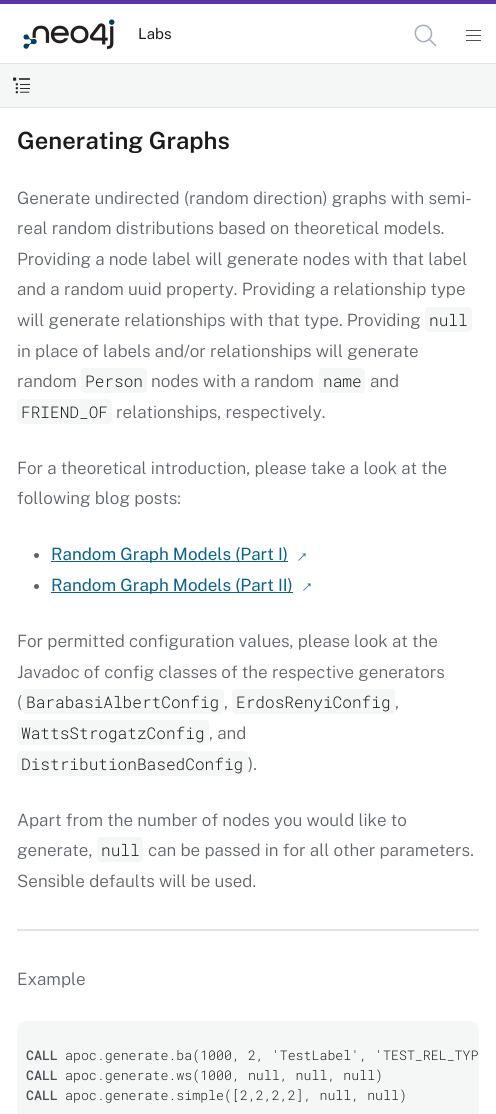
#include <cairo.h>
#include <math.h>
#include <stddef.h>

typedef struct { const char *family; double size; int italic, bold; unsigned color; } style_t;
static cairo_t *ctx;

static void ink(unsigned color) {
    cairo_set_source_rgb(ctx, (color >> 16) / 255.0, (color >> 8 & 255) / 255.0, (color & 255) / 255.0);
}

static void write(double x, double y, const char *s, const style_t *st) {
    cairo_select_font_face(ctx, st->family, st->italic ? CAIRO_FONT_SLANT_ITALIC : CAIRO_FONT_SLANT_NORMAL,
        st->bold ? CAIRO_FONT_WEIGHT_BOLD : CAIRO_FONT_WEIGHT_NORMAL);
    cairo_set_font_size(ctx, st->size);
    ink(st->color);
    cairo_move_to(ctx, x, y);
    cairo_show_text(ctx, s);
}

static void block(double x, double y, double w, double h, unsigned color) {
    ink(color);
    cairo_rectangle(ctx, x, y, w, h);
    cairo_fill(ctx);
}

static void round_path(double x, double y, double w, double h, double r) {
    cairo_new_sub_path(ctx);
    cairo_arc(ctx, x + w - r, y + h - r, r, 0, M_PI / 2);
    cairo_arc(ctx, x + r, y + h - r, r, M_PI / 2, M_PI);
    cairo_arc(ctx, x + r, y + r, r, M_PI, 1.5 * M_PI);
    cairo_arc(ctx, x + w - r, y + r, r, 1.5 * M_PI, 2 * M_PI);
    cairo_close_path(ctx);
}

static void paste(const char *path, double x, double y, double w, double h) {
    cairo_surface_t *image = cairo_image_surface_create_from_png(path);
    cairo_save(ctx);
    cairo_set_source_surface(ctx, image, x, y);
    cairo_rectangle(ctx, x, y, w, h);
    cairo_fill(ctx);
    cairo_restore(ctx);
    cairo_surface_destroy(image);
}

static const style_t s1 = {"Public Sans", 15, 0, 0, 0x1a1b1d};
static const style_t s2 = {"Public Sans SemiBold", 23.75, 0, 0, 0x1a1b1d};
static const style_t s3 = {"Public Sans Light", 17, 0, 0, 0x5e636a};
static const style_t s4 = {"Roboto Mono Light", 16.1, 0, 0, 0x1a1b1d};
static const style_t s5 = {"Public Sans", 17, 0, 0, 0x0a6190};
static const style_t s6 = {"Liberation Sans", 17, 0, 0, 0x0a6190};
static const style_t s7 = {"Roboto Mono Medium", 13.25, 0, 0, 0x4d5157};
static const style_t s8 = {"Roboto Mono Light", 13.25, 0, 0, 0x1a1b1d};

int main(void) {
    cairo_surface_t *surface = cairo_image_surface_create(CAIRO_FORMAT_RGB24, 496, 1114);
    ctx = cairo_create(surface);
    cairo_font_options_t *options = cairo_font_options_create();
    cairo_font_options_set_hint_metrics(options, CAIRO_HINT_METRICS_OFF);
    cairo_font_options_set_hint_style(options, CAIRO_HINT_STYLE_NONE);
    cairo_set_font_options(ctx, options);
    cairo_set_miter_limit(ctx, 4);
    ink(0xffffff);
    cairo_paint(ctx);
    block(0, 0, 496, 4, 0x5a34aa);
    block(0, 63, 496, 1, 0xe2e3e5);
    paste("pic1.png", 23, 19, 92, 30);
    write(138, 39, "Labs", &s1);
    cairo_new_path(ctx);
    cairo_move_to(ctx, 420, 26);
    cairo_curve_to(ctx, 430, 22, 436.5, 36.5, 426.5, 41);
    cairo_curve_to(ctx, 417, 45, 410.5, 30, 420, 26);
    cairo_close_path(ctx);
    cairo_move_to(ctx, 429, 39);
    cairo_line_to(ctx, 435.5, 45.5);
    ink(0xa0aec0);
    cairo_set_line_width(ctx, 1.5);
    cairo_set_line_cap(ctx, CAIRO_LINE_CAP_ROUND);
    cairo_set_line_join(ctx, CAIRO_LINE_JOIN_ROUND);
    cairo_stroke(ctx);
    block(466, 30, 15, 1, 0x4d5157);
    block(466, 35, 15, 1, 0x4d5157);
    block(466, 40, 15, 1, 0x4d5157);
    block(0, 107, 496, 1, 0xe2e3e5);
    block(0, 64, 496, 43, 0xf5f6f6);
    paste("pic2.png", 13, 77, 17, 17);
    write(17, 149, "Generating Graphs", &s2);
    write(17, 204, "Generate undirected (random direction) graphs with semi-", &s3);
    write(17, 234, "real random distributions based on theoretical models.", &s3);
    write(17, 265, "Providing a node label will generate nodes with that label", &s3);
    write(17, 295, "and a random uuid property. Providing a relationship type", &s3);
    write(17, 326, "will generate relationships with that type. Providing", &s3);
    ink(0xf5f6f6);
    round_path(425, 307, 47, 25, 4);
    cairo_fill(ctx);
    write(429, 326, "null", &s4);
    write(17, 357, "in place of labels and/or relationships will generate", &s3);
    write(17, 387, "random", &s3);
    ink(0xf5f6f6);
    round_path(81, 368, 66, 25, 4);
    cairo_fill(ctx);
    write(85, 387, "Person", &s4);
    write(151, 387, "nodes with a random", &s3);
    ink(0xf5f6f6);
    round_path(319, 368, 46, 25, 4);
    cairo_fill(ctx);
    write(323, 387, "name", &s4);
    write(370, 387, "and", &s3);
    ink(0xf5f6f6);
    round_path(17, 399, 95, 25, 4);
    cairo_fill(ctx);
    write(21, 418, "FRIEND_OF", &s4);
    write(116, 418, "relationships, respectively.", &s3);
    write(17, 474, "For a theoretical introduction, please take a look at the", &s3);
    write(17, 504, "following blog posts:", &s3);
    cairo_new_path(ctx);
    cairo_arc(ctx, 36.5, 555.5, 2.5, 0, 2 * M_PI);
    cairo_fill(ctx);
    block(51, 561, 237, 1, 0x0a6190);
    write(51, 560, "Random Graph Models (Part I)", &s5);
    cairo_save(ctx);
    cairo_translate(ctx, 298, 565);
    cairo_rotate(ctx, -45 * M_PI / 180);
    write(0, 0, "→", &s6);
    cairo_restore(ctx);
    ink(0x5e636a);
    cairo_new_path(ctx);
    cairo_arc(ctx, 36.5, 586.5, 2.5, 0, 2 * M_PI);
    cairo_fill(ctx);
    block(51, 592, 242, 1, 0x0a6190);
    write(51, 591, "Random Graph Models (Part II)", &s5);
    cairo_save(ctx);
    cairo_translate(ctx, 303, 595);
    cairo_rotate(ctx, -45 * M_PI / 180);
    write(0, 0, "→", &s6);
    cairo_restore(ctx);
    write(17, 647, "For permitted configuration values, please look at the", &s3);
    write(17, 678, "Javadoc of config classes of the respective generators", &s3);
    write(17, 708, "(", &s3);
    ink(0xf5f6f6);
    round_path(22, 689, 202, 25, 4);
    cairo_fill(ctx);
    write(26, 708, "BarabasiAlbertConfig", &s4);
    write(224, 708, ",", &s3);
    ink(0xf5f6f6);
    round_path(232, 689, 163, 25, 4);
    cairo_fill(ctx);
    write(236, 708, "ErdosRenyiConfig", &s4);
    write(395, 708, ",", &s3);
    ink(0xf5f6f6);
    round_path(17, 720, 192, 25, 4);
    cairo_fill(ctx);
    write(21, 739, "WattsStrogatzConfig", &s4);
    write(209, 739, ", and", &s3);
    ink(0xf5f6f6);
    round_path(17, 751, 231, 25, 4);
    cairo_fill(ctx);
    write(21, 770, "DistributionBasedConfig", &s4);
    write(248, 770, ").", &s3);
    write(17, 826, "Apart from the number of nodes you would like to", &s3);
    write(17, 856, "generate,", &s3);
    ink(0xf5f6f6);
    round_path(97, 837, 46, 25, 4);
    cairo_fill(ctx);
    write(101, 856, "null", &s4);
    write(148, 856, "can be passed in for all other parameters.", &s3);
    write(17, 887, "Sensible defaults will be used.", &s3);
    block(17, 929, 462, 2, 0xe2e3e5);
    write(17, 985, "Example", &s3);
    ink(0xf5f6f6);
    round_path(17, 1021, 462, 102, 9);
    cairo_fill(ctx);
    write(26, 1060, "CALL", &s7);
    write(65, 1060, "apoc.generate.ba(1000, 2, 'TestLabel', 'TEST_REL_TYP", &s8);
    write(26, 1080, "CALL", &s7);
    write(65, 1080, "apoc.generate.ws(1000, null, null, null)", &s8);
    write(26, 1100, "CALL", &s7);
    write(65, 1100, "apoc.generate.simple([2,2,2,2], null, null)", &s8);
    cairo_surface_write_to_png(surface, "screenshot.png");
    cairo_font_options_destroy(options);
    cairo_destroy(ctx);
    cairo_surface_destroy(surface);
    return 0;
}
